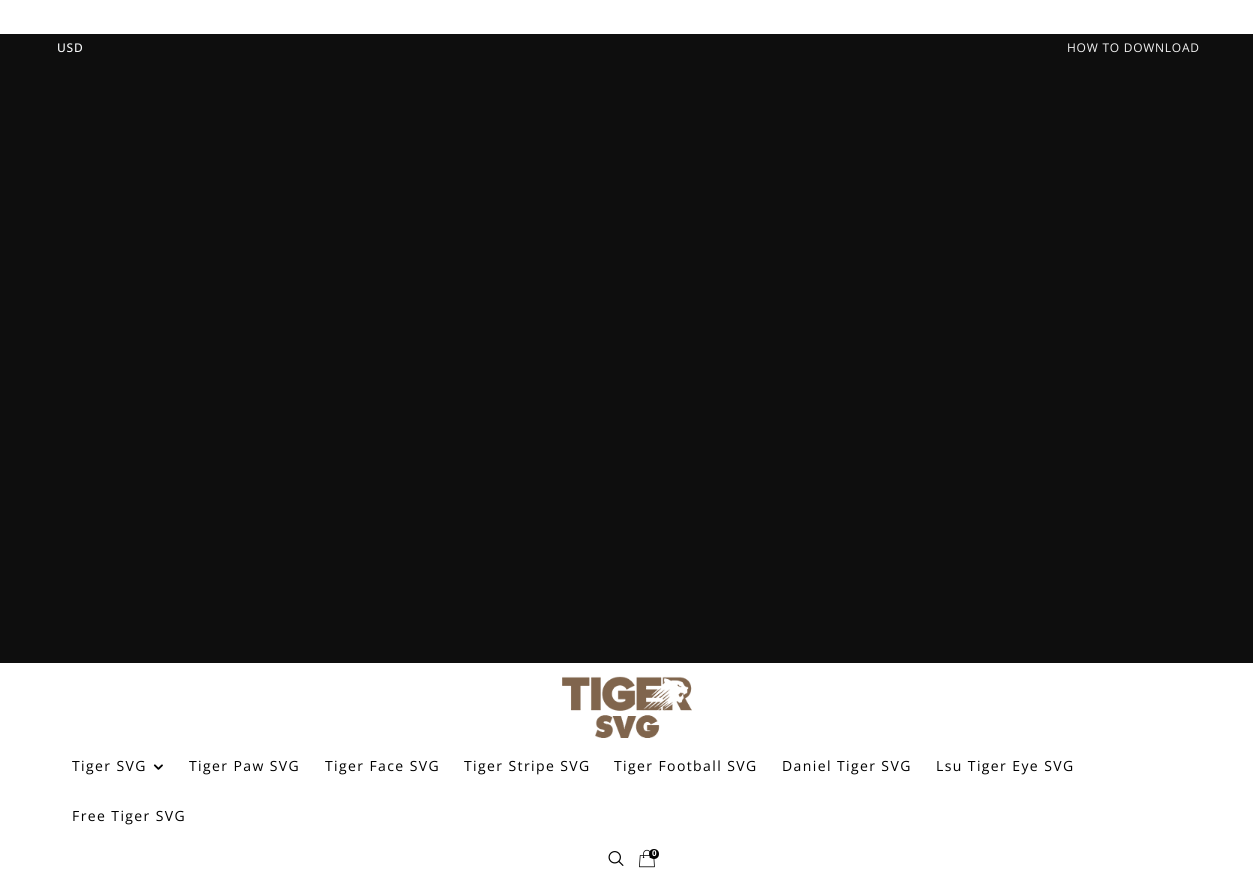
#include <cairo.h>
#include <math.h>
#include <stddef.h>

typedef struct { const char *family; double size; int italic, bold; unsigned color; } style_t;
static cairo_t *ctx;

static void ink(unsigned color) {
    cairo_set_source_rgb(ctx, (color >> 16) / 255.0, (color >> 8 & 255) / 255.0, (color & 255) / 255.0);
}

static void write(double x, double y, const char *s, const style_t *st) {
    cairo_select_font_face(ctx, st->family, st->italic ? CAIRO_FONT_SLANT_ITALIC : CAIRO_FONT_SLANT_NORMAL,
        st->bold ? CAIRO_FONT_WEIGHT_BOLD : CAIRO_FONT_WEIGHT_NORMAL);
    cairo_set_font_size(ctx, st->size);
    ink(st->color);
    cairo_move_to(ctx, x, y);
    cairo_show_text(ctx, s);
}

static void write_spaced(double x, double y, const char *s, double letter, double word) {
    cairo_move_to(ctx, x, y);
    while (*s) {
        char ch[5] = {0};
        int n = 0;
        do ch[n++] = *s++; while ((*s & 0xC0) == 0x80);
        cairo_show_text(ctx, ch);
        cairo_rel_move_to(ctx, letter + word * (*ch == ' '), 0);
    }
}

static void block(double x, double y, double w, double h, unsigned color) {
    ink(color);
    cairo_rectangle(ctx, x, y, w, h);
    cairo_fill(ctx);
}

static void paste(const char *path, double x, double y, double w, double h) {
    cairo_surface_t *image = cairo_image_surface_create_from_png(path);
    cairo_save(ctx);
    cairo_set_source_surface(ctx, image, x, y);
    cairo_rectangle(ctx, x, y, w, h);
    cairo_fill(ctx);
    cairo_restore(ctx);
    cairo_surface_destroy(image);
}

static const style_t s1 = {"Open Sans", 8, 0, 1, 0xffffff};

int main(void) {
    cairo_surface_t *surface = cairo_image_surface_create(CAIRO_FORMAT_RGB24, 1253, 877);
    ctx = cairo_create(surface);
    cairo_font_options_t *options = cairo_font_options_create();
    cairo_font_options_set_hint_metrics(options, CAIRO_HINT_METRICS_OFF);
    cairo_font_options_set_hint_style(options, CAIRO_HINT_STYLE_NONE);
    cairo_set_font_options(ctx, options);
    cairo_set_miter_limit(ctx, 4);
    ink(0xffffff);
    cairo_paint(ctx);
    block(0, 34, 1253, 629, 0x0e0e0e);
    cairo_select_font_face(ctx, "Open Sans Medium", CAIRO_FONT_SLANT_NORMAL, CAIRO_FONT_WEIGHT_NORMAL);
    cairo_set_font_size(ctx, 12);
    ink(0xf9fafb);
    write_spaced(57, 52, "USD", 0.75, 0);
    cairo_select_font_face(ctx, "Open Sans", CAIRO_FONT_SLANT_NORMAL, CAIRO_FONT_WEIGHT_NORMAL);
    ink(0xf2f2f2);
    write_spaced(1067, 52, "HOW TO DOWNLOAD", 0.75, 0);
    paste("pic1.png", 562, 676, 130, 62);
    cairo_set_font_size(ctx, 14);
    ink(0x000000);
    write_spaced(72, 771, "Tiger SVG", 1.4, 0);
    paste("pic2.png", 153, 764, 10, 6);
    write_spaced(189, 771, "Tiger Paw SVG", 1.4, 0);
    write_spaced(325, 771, "Tiger Face SVG", 1.4, 0);
    write_spaced(464, 771, "Tiger Stripe SVG", 1.4, 0);
    write_spaced(614, 771, "Tiger Football SVG", 1.4, 0);
    write_spaced(782, 771, "Daniel Tiger SVG", 1.4, 0);
    write_spaced(936, 771, "Lsu Tiger Eye SVG", 1.4, 0);
    write_spaced(72, 821, "Free Tiger SVG", 1.4, 0);
    paste("pic3.png", 608, 851, 16, 15);
    paste("pic4.png", 639, 849, 16, 19);
    cairo_arc(ctx, 654, 854, 5, 0, 2 * M_PI);
    cairo_fill(ctx);
    write(652, 856, "0", &s1);
    cairo_surface_write_to_png(surface, "screenshot.png");
    cairo_font_options_destroy(options);
    cairo_destroy(ctx);
    cairo_surface_destroy(surface);
    return 0;
}
